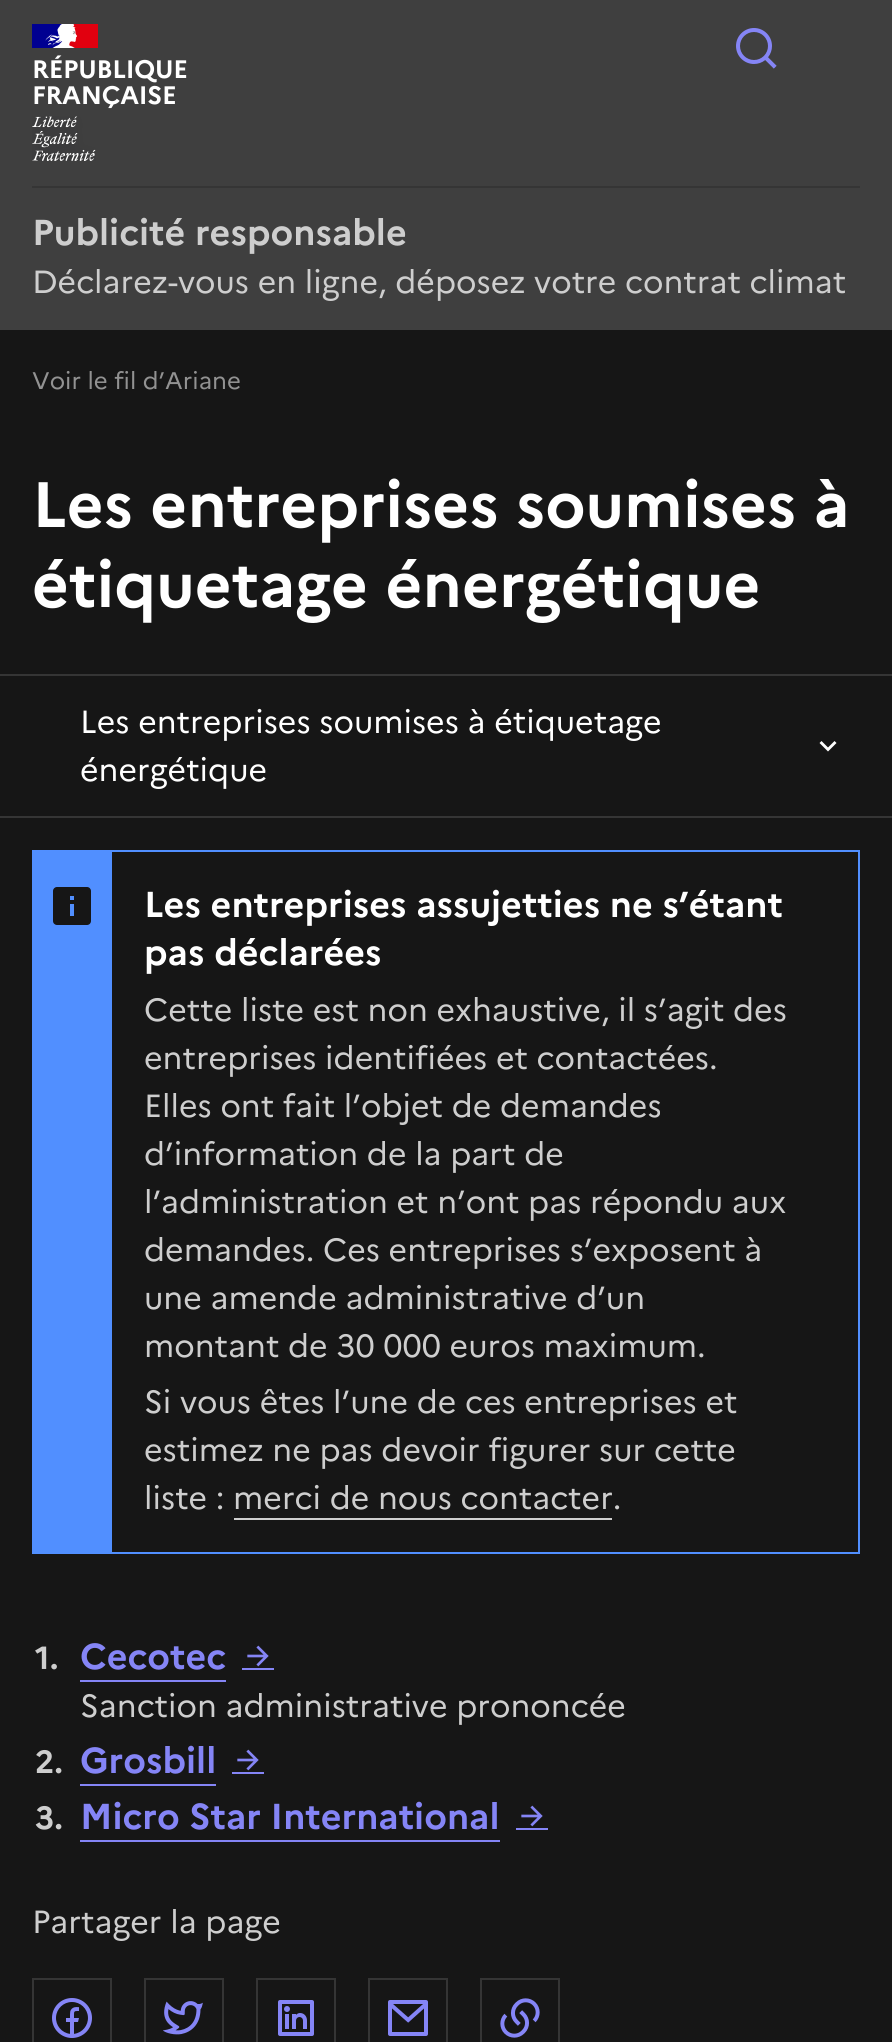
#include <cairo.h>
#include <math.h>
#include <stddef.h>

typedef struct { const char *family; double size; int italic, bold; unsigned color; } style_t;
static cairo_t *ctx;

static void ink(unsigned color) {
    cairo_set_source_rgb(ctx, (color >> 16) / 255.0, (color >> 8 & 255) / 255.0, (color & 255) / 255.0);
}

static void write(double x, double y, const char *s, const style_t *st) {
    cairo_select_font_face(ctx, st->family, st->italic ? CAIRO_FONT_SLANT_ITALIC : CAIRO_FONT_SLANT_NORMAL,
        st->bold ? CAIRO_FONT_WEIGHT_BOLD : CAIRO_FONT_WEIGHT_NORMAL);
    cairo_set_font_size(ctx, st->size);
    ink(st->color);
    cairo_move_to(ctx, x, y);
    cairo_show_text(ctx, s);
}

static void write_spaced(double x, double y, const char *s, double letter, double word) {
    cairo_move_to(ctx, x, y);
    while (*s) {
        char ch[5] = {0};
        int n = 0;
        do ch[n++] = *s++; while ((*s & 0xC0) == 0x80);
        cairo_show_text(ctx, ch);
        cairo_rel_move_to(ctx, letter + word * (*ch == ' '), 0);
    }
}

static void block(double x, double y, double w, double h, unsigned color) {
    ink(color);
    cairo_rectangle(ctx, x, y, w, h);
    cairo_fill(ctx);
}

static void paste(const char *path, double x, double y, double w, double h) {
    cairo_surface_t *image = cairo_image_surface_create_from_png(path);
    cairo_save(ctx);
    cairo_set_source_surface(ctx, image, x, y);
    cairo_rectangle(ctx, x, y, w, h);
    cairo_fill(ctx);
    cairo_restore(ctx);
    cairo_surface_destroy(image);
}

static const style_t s1 = {"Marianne", 36, 0, 1, 0xcecece};
static const style_t s2 = {"Marianne", 32, 0, 0, 0xcecece};
static const style_t s3 = {"Marianne", 24, 0, 0, 0x929292};
static const style_t s4 = {"Marianne", 64, 0, 1, 0xffffff};
static const style_t s5 = {"Marianne", 32, 0, 0, 0xffffff};
static const style_t s6 = {"Marianne", 36, 0, 1, 0xffffff};
static const style_t s7 = {"Marianne", 32, 0, 1, 0xcecece};
static const style_t s8 = {"Marianne", 36, 0, 1, 0x8585f6};

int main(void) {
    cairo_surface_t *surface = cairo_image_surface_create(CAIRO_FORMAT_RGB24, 892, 2042);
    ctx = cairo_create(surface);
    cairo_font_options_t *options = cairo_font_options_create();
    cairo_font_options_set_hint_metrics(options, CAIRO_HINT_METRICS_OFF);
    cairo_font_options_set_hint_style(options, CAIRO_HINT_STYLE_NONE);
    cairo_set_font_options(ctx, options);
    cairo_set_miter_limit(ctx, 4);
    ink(0x161616);
    cairo_paint(ctx);
    block(0, 0, 892, 330, 0x3f3f3f);
    paste("pic1.png", 736, 28, 41, 41);
    block(32, 24, 31, 24, 0x000091);
    block(69, 24, 29, 24, 0xe1000f);
    paste("pic2.png", 45, 24, 32, 24);
    cairo_select_font_face(ctx, "Marianne", CAIRO_FONT_SLANT_NORMAL, CAIRO_FONT_WEIGHT_BOLD);
    cairo_set_font_size(ctx, 25.25);
    ink(0xffffff);
    write_spaced(32, 78, "RÉPUBLIQUE", -0.25, 0);
    write_spaced(32, 104, "FRANÇAISE", -0.25, 0);
    paste("pic3.png", 32, 116, 64, 45);
    block(32, 186, 828, 2, 0x353535);
    write(32, 245, "Publicité responsable", &s1);
    write(32, 293, "Déclarez-vous en ligne, déposez votre contrat climat", &s2);
    write(32, 389, "Voir le fil d’Ariane", &s3);
    write(32, 527, "Les entreprises soumises à", &s4);
    write(32, 607, "étiquetage énergétique", &s4);
    block(0, 674, 892, 2, 0x353535);
    block(0, 816, 892, 2, 0x353535);
    write(80, 733, "Les entreprises soumises à étiquetage", &s5);
    cairo_new_path(ctx);
    cairo_move_to(ctx, 828, 747.5);
    cairo_line_to(ctx, 834.5, 741);
    cairo_line_to(ctx, 836.5, 743);
    cairo_line_to(ctx, 828, 751.5);
    cairo_line_to(ctx, 819.5, 743);
    cairo_line_to(ctx, 821.5, 741);
    cairo_close_path(ctx);
    cairo_fill(ctx);
    write(80, 781, "énergétique", &s5);
    block(34, 852, 78, 700, 0x518fff);
    cairo_rectangle(ctx, 33, 851, 826, 702);
    cairo_stroke(ctx);
    paste("pic4.png", 53, 887, 38, 38);
    write(144, 917, "Les entreprises assujetties ne s’étant", &s6);
    write(144, 965, "pas déclarées", &s6);
    write(144, 1021, "Cette liste est non exhaustive, il s’agit des", &s2);
    write(144, 1069, "entreprises identifiées et contactées.", &s2);
    write(144, 1117, "Elles ont fait l’objet de demandes", &s2);
    write(144, 1165, "d’information de la part de", &s2);
    write(144, 1213, "l’administration et n’ont pas répondu aux", &s2);
    write(144, 1261, "demandes. Ces entreprises s’exposent à", &s2);
    write(144, 1309, "une amende administrative d’un", &s2);
    write(144, 1357, "montant de 30 000 euros maximum.", &s2);
    write(144, 1413, "Si vous êtes l’une de ces entreprises et", &s2);
    write(144, 1461, "estimez ne pas devoir figurer sur cette", &s2);
    write(144, 1509, "liste : merci de nous contacter.", &s2);
    block(234, 1518, 378, 2, 0xcecece);
    write(35, 1669, "1.", &s7);
    block(80, 1680, 146, 2, 0x8585f6);
    block(242, 1668, 32, 2, 0x8585f6);
    write(80, 1669, "Cecotec", &s8);
    paste("pic5.png", 247, 1645, 22, 22);
    write(80, 1717, "Sanction administrative prononcée", &s2);
    write(35, 1773, "2.", &s7);
    block(80, 1784, 136, 2, 0x8585f6);
    block(232, 1772, 32, 2, 0x8585f6);
    write(80, 1773, "Grosbill", &s8);
    paste("pic5.png", 237, 1749, 22, 22);
    write(35, 1829, "3.", &s7);
    block(80, 1840, 420, 2, 0x8585f6);
    block(516, 1828, 32, 2, 0x8585f6);
    write(80, 1829, "Micro Star International", &s8);
    paste("pic5.png", 521, 1805, 22, 22);
    write(32, 1933, "Partager la page", &s2);
    cairo_rectangle(ctx, 33, 1979, 78, 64);
    ink(0x353535);
    cairo_stroke(ctx);
    paste("pic6.png", 52, 1998, 40, 40);
    cairo_rectangle(ctx, 145, 1979, 78, 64);
    cairo_stroke(ctx);
    paste("pic7.png", 163, 2001, 40, 34);
    cairo_rectangle(ctx, 257, 1979, 78, 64);
    cairo_stroke(ctx);
    paste("pic8.png", 278, 2000, 36, 36);
    cairo_rectangle(ctx, 369, 1979, 78, 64);
    cairo_stroke(ctx);
    paste("pic9.png", 388, 2000, 40, 36);
    cairo_rectangle(ctx, 481, 1979, 78, 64);
    cairo_stroke(ctx);
    paste("pic10.png", 500, 1998, 40, 40);
    cairo_surface_write_to_png(surface, "screenshot.png");
    cairo_font_options_destroy(options);
    cairo_destroy(ctx);
    cairo_surface_destroy(surface);
    return 0;
}
